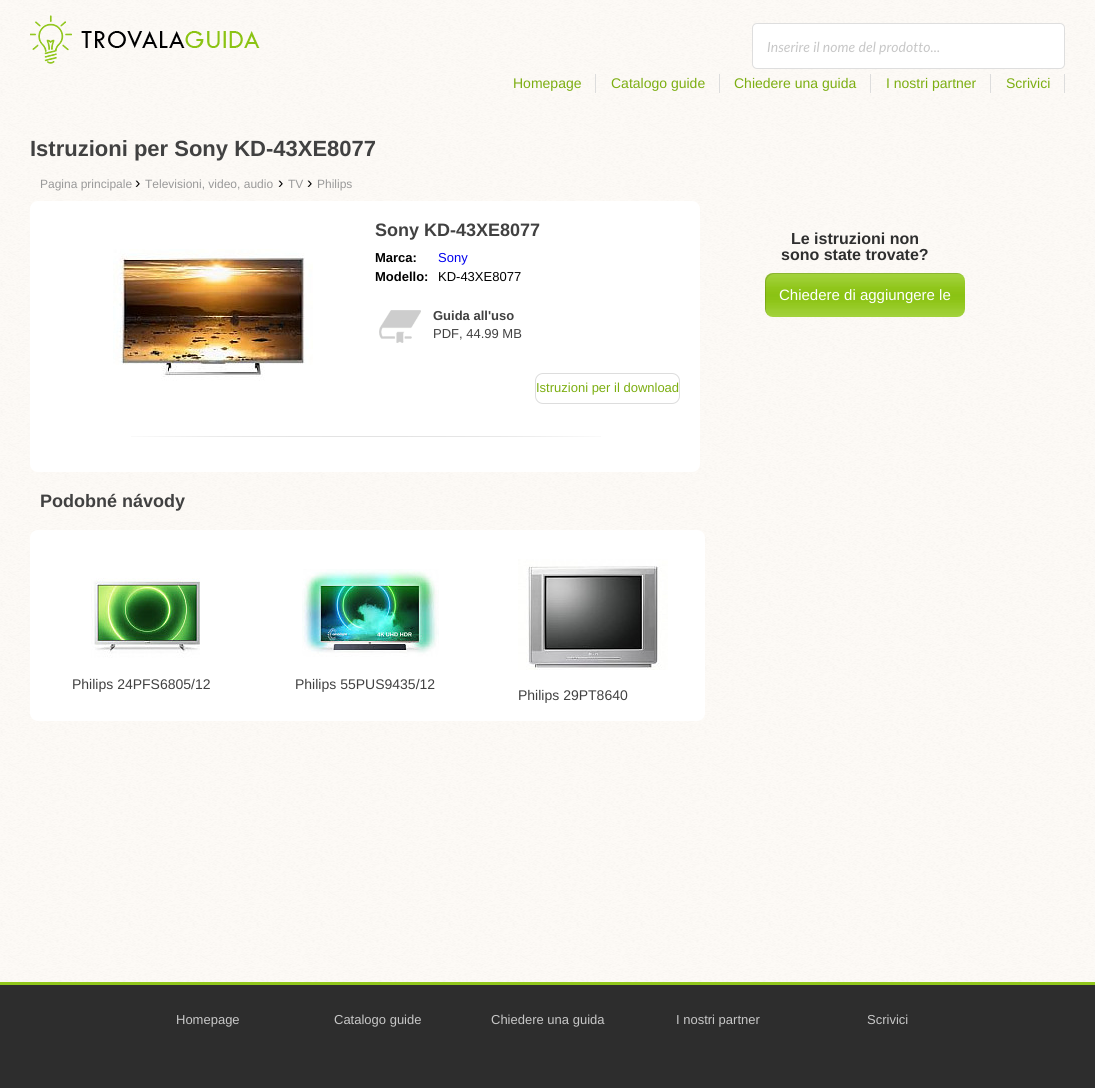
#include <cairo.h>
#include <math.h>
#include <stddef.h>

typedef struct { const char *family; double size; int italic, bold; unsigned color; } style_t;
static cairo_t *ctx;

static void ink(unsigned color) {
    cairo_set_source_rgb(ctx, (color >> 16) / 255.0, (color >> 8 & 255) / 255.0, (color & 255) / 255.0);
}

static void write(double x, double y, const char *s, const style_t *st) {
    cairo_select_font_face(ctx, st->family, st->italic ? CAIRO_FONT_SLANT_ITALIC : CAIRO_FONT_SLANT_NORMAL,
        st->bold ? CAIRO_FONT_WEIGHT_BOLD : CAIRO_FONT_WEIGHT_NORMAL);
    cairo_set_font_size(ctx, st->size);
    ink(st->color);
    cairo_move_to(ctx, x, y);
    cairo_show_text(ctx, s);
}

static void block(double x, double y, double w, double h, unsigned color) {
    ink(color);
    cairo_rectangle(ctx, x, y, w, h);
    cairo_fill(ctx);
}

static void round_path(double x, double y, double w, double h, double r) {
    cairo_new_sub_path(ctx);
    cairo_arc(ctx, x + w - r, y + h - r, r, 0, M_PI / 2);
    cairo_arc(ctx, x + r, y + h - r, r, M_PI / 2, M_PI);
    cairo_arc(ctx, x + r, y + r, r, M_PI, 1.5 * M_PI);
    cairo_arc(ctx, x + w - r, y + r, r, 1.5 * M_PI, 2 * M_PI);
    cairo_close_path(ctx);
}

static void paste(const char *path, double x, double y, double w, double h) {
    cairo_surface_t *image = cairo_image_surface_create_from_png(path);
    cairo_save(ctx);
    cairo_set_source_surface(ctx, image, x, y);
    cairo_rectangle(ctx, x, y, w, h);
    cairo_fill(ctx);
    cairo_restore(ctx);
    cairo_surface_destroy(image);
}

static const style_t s1 = {"Lato", 14, 1, 0, 0xc7c7c7};
static const style_t s2 = {"Liberation Sans", 14, 0, 0, 0x7cae11};
static const style_t s3 = {"Liberation Sans", 22, 0, 1, 0x414141};
static const style_t s4 = {"Liberation Sans", 12, 0, 0, 0x999999};
static const style_t s5 = {"Liberation Sans", 16, 0, 0, 0x000000};
static const style_t s6 = {"Liberation Sans", 18, 0, 1, 0x414141};
static const style_t s7 = {"Liberation Sans", 13, 0, 1, 0x000000};
static const style_t s8 = {"Liberation Sans", 13, 0, 0, 0x0000ee};
static const style_t s9 = {"Liberation Sans", 13, 0, 0, 0x000000};
static const style_t s10 = {"Liberation Sans", 13, 0, 1, 0x414141};
static const style_t s11 = {"Liberation Sans", 13, 0, 0, 0x414141};
static const style_t s12 = {"Liberation Sans", 13, 0, 0, 0x7cae11};
static const style_t s13 = {"Liberation Sans", 14, 0, 0, 0x414141};
static const style_t s14 = {"Liberation Sans", 16, 0, 1, 0x2f2f2f};
static const style_t s15 = {"Liberation Sans", 15, 0, 0, 0xffffff};
static const style_t s16 = {"Liberation Sans", 13, 0, 0, 0xc7c7c7};

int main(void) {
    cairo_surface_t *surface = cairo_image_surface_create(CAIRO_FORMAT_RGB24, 1095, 1088);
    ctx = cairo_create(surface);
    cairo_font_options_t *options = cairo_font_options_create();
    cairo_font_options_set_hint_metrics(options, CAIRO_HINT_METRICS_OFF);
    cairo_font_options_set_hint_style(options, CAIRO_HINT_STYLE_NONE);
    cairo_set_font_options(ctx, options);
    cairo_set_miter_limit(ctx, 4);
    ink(0xffffff);
    cairo_paint(ctx);
    paste("pic1.png", 0, 0, 1095, 982);
    paste("pic2.png", 30, 15, 230, 49);
    ink(0xffffff);
    round_path(752, 23, 313, 46, 5);
    cairo_fill(ctx);
    round_path(752.5, 23.5, 312, 45, 4.5);
    cairo_set_source_rgba(ctx, 0.133, 0.141, 0.149, 0.15);
    cairo_set_line_width(ctx, 1);
    cairo_stroke(ctx);
    write(767, 52, "Inserire il nome del prodotto...", &s1);
    block(595, 74, 1, 19, 0xdddddd);
    write(513, 88, "Homepage", &s2);
    block(719, 74, 1, 19, 0xdddddd);
    write(611, 88, "Catalogo guide", &s2);
    block(870, 74, 1, 19, 0xdddddd);
    write(734, 88, "Chiedere una guida", &s2);
    block(990, 74, 1, 19, 0xdddddd);
    write(886, 88, "I nostri partner", &s2);
    block(1064, 74, 1, 19, 0xdddddd);
    write(1006, 88, "Scrivici", &s2);
    write(30, 156, "Istruzioni per Sony KD-43XE8077", &s3);
    write(40, 188, "Pagina principale", &s4);
    write(135, 188, "›", &s5);
    write(145, 188, "Televisioni, video, audio", &s4);
    write(278, 188, "›", &s5);
    write(288, 188, "TV", &s4);
    write(307, 188, "›", &s5);
    write(317, 188, "Philips", &s4);
    ink(0xffffff);
    round_path(30, 201, 670, 271, 8);
    cairo_fill(ctx);
    paste("pic3.png", 131, 436, 470, 1);
    paste("pic4.png", 113, 249, 200, 132);
    write(375, 236, "Sony KD-43XE8077", &s6);
    write(375, 262, "Marca:", &s7);
    write(438, 262, "Sony", &s8);
    write(375, 281, "Modello:", &s7);
    write(438, 281, "KD-43XE8077", &s9);
    paste("pic5.png", 379, 310, 42, 33);
    write(433, 320, "Guida all'uso", &s10);
    write(433, 338, "PDF, 44.99 MB", &s11);
    round_path(535.5, 373.5, 144, 30, 7.5);
    ink(0xdddddd);
    cairo_stroke(ctx);
    write(536, 392, "Istruzioni per il download", &s12);
    write(40, 507, "Podobné návody", &s6);
    ink(0xffffff);
    round_path(30, 530, 675, 191, 8);
    cairo_fill(ctx);
    paste("pic6.png", 91, 578, 109, 80);
    write(72, 689, "Philips 24PFS6805/12", &s13);
    paste("pic7.png", 302, 569, 137, 88);
    write(295, 689, "Philips 55PUS9435/12", &s13);
    paste("pic8.png", 518, 559, 150, 111);
    write(518, 700, "Philips 29PT8640", &s13);
    write(791, 244, "Le istruzioni non", &s14);
    write(781, 260, "sono state trovate?", &s14);
    paste("pic9.png", 765, 273, 200, 44);
    cairo_set_source_rgba(ctx, 0, 0, 0, 0.14);
    cairo_new_path(ctx);
    cairo_move_to(ctx, 774, 274);
    cairo_line_to(ctx, 958, 274);
    cairo_curve_to(ctx, 960, 274, 962, 275, 964, 277);
    cairo_curve_to(ctx, 962, 275, 960, 273, 957, 273);
    cairo_line_to(ctx, 773, 273);
    cairo_curve_to(ctx, 769, 273, 765, 277, 765, 281);
    cairo_line_to(ctx, 765, 309);
    cairo_curve_to(ctx, 765, 312, 767, 314, 769, 316);
    cairo_curve_to(ctx, 767, 314, 766, 312, 766, 310);
    cairo_line_to(ctx, 766, 282);
    cairo_curve_to(ctx, 766, 278, 770, 274, 774, 274);
    cairo_close_path(ctx);
    cairo_fill(ctx);
    write(779, 300, "Chiedere di aggiungere le", &s15);
    block(0, 985, 1095, 103, 0x2d2d2d);
    block(0, 982, 1095, 3, 0x90c61b);
    write(176, 1024, "Homepage", &s16);
    write(334, 1024, "Catalogo guide", &s16);
    write(491, 1024, "Chiedere una guida", &s16);
    write(676, 1024, "I nostri partner", &s16);
    write(867, 1024, "Scrivici", &s16);
    cairo_surface_write_to_png(surface, "screenshot.png");
    cairo_font_options_destroy(options);
    cairo_destroy(ctx);
    cairo_surface_destroy(surface);
    return 0;
}
